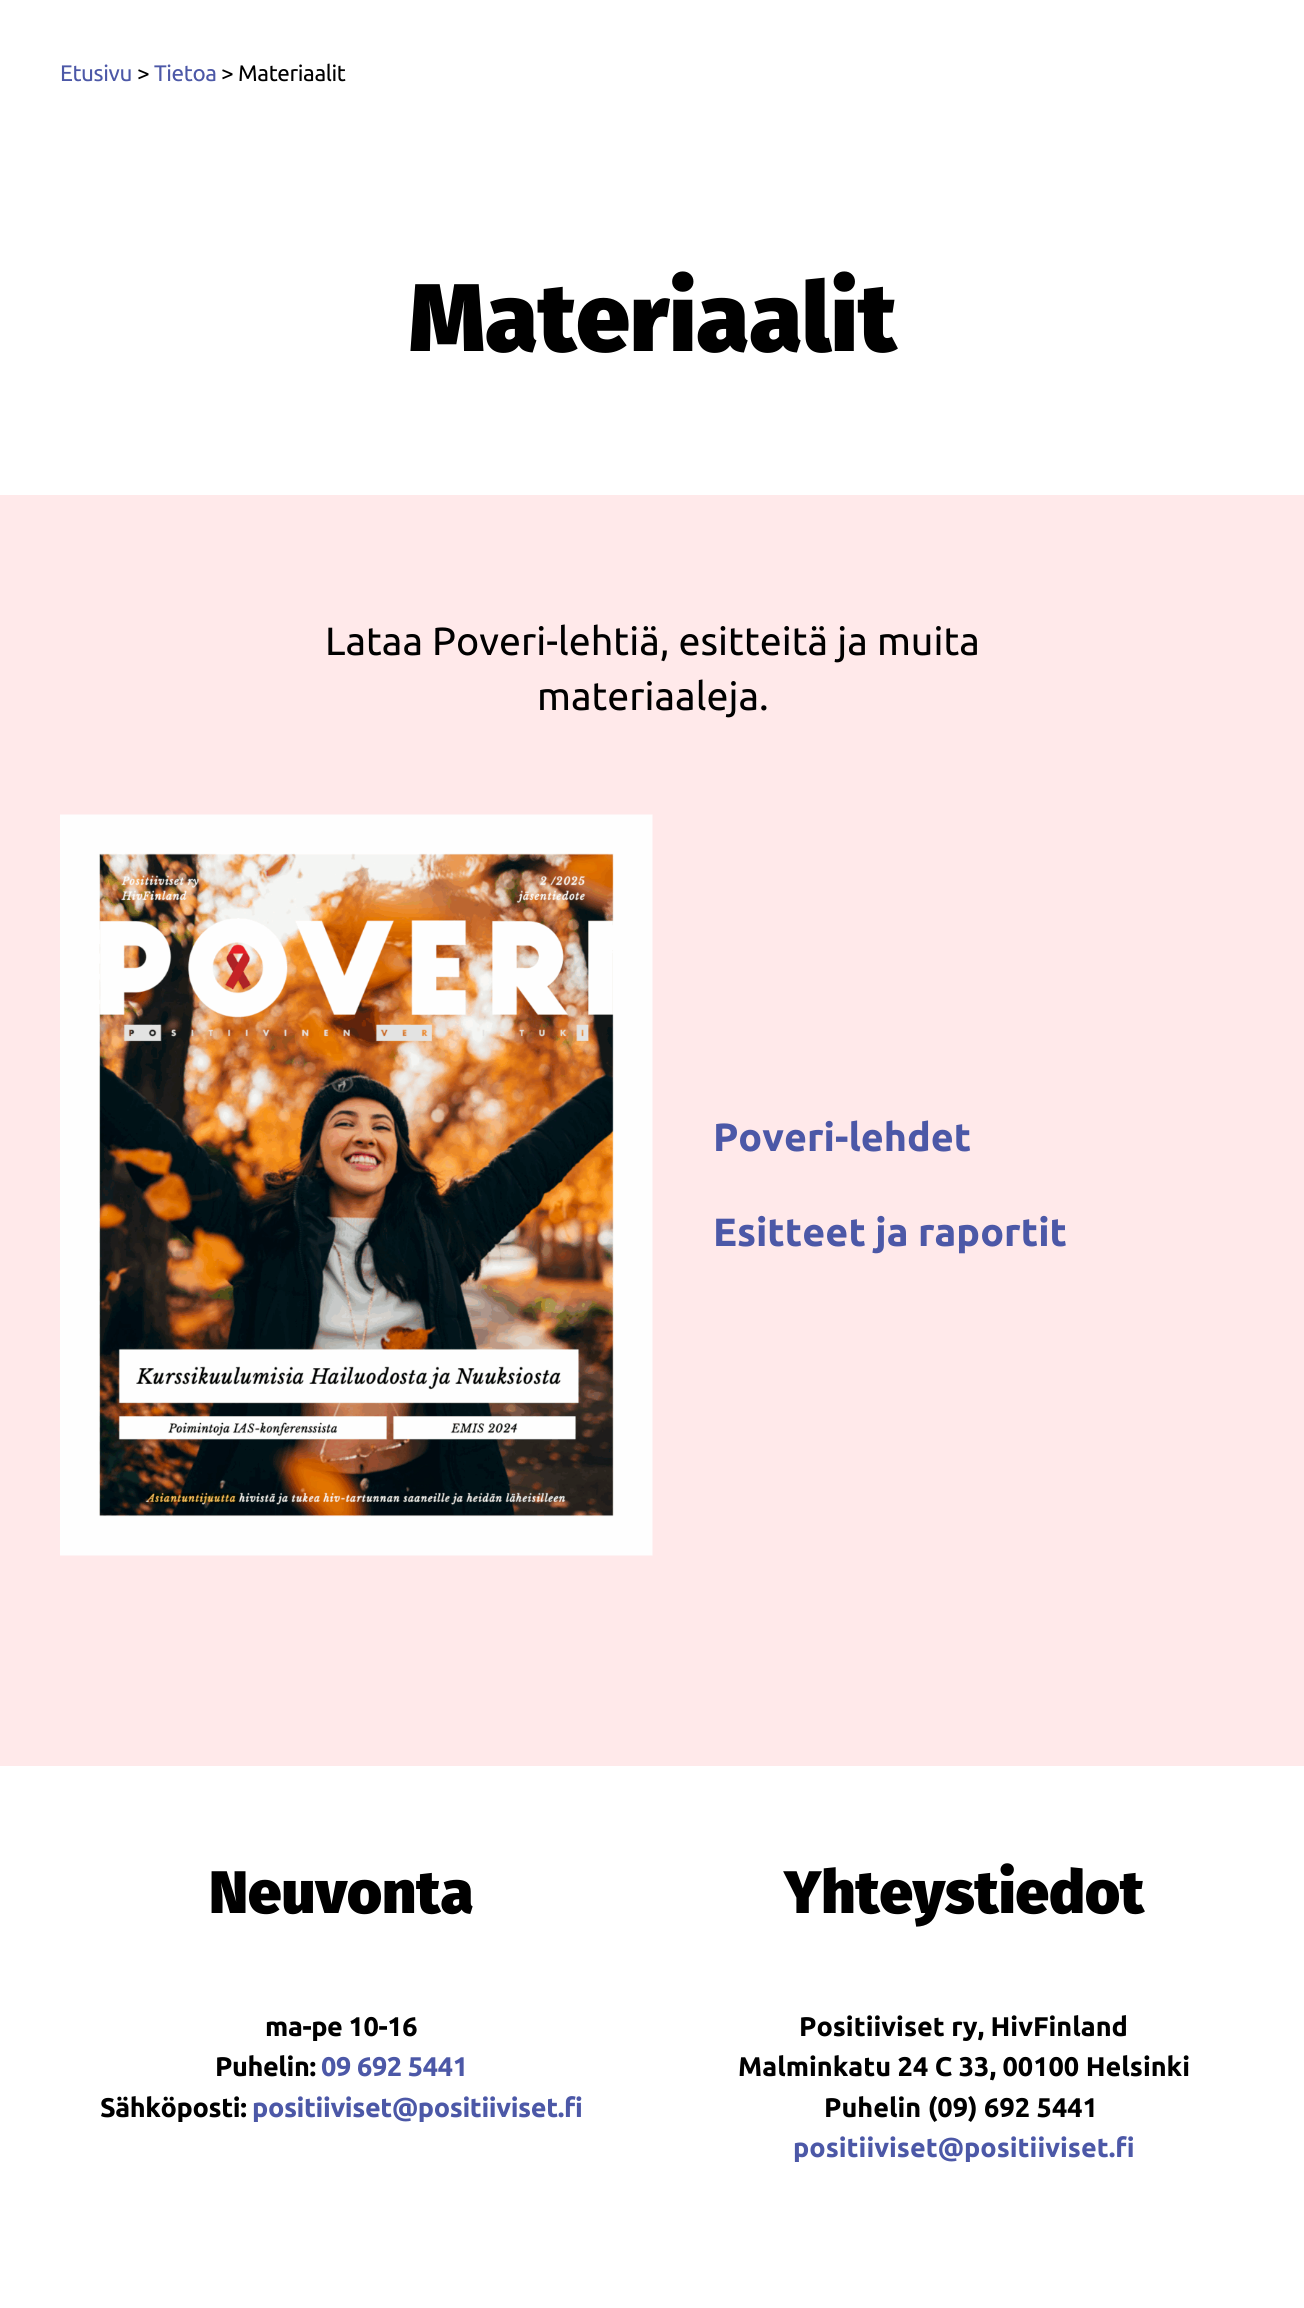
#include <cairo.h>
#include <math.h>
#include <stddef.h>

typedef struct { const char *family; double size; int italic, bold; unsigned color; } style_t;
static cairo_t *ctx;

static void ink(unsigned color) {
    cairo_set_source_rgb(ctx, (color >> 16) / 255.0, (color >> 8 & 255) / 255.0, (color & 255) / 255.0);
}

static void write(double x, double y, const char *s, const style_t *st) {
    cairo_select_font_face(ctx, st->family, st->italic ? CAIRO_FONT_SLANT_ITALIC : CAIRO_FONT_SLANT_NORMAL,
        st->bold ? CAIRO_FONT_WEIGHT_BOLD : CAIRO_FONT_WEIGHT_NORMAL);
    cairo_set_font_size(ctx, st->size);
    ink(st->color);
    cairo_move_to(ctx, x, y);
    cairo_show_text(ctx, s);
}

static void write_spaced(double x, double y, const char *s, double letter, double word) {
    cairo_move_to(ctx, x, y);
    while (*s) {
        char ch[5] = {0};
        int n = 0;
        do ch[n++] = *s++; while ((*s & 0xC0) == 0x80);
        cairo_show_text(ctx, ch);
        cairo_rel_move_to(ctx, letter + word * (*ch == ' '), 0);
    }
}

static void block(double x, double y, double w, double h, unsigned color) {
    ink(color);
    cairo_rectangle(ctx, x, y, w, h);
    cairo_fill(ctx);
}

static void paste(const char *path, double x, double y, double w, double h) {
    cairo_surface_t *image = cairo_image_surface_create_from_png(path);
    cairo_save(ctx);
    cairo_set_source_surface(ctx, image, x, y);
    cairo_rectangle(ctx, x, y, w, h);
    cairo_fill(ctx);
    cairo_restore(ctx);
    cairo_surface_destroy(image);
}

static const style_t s1 = {"Fira Sans Black", 96, 0, 0, 0x000000};
static const style_t s2 = {"Ubuntu", 39.4, 0, 0, 0x000000};
static const style_t s3 = {"Ubuntu", 39.4, 0, 1, 0x4c58a7};
static const style_t s4 = {"Fira Sans Black", 60, 0, 0, 0x000000};
static const style_t s5 = {"Ubuntu", 27, 0, 1, 0x000000};
static const style_t s6 = {"Ubuntu", 27, 0, 1, 0x4c58a7};

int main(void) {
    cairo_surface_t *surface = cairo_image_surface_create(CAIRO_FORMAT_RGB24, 1304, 2308);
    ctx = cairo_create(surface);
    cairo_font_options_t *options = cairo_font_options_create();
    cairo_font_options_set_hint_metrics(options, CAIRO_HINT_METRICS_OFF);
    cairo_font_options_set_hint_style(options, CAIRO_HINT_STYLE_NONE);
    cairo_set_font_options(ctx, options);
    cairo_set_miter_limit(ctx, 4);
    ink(0xffe9ea);
    cairo_paint(ctx);
    block(0, 0, 1304, 495, 0xffffff);
    cairo_select_font_face(ctx, "Ubuntu", CAIRO_FONT_SLANT_NORMAL, CAIRO_FONT_WEIGHT_NORMAL);
    cairo_set_font_size(ctx, 22.5);
    ink(0x4c58a7);
    write_spaced(60, 81, "Etusivu", -0.4, 0);
    ink(0x000000);
    write_spaced(137, 81, ">", -0.4, 0);
    ink(0x4c58a7);
    write_spaced(154, 81, "Tietoa", -0.4, 0);
    ink(0x000000);
    write_spaced(221, 81, "> Materiaalit", -0.4, 0);
    write(409, 351, "Materiaalit", &s1);
    write(325, 655, "Lataa Poveri-lehtiä, esitteitä ja muita", &s2);
    write(537, 710, "materiaaleja.", &s2);
    paste("pic1.png", 60, 814, 593, 742);
    write(713, 1151, "Poveri-lehdet", &s3);
    write(713, 1246, "Esitteet ja raportit", &s3);
    block(0, 1766, 1304, 542, 0xffffff);
    write(209, 1913, "Neuvonta", &s4);
    cairo_select_font_face(ctx, "Ubuntu", CAIRO_FONT_SLANT_NORMAL, CAIRO_FONT_WEIGHT_BOLD);
    cairo_set_font_size(ctx, 27);
    write_spaced(265, 2036, "ma-pe 10-16", -0.4, 0);
    write_spaced(215, 2076, "Puhelin:", -0.4, 0);
    ink(0x4c58a7);
    write_spaced(321, 2076, "09 692 5441", -0.4, 0);
    ink(0x000000);
    write_spaced(100, 2117, "Sähköposti:", -0.4, 0);
    ink(0x4c58a7);
    write_spaced(252, 2117, "positiiviset@positiiviset.fi", -0.4, 0);
    write(784, 1913, "Yhteystiedot", &s4);
    write(799, 2036, "Positiiviset ry, HivFinland", &s5);
    write(738, 2076, "Malminkatu 24 C 33, 00100 Helsinki", &s5);
    write(824, 2117, "Puhelin (09) 692 5441", &s5);
    write(793, 2157, "positiiviset@positiiviset.fi", &s6);
    cairo_surface_write_to_png(surface, "screenshot.png");
    cairo_font_options_destroy(options);
    cairo_destroy(ctx);
    cairo_surface_destroy(surface);
    return 0;
}
